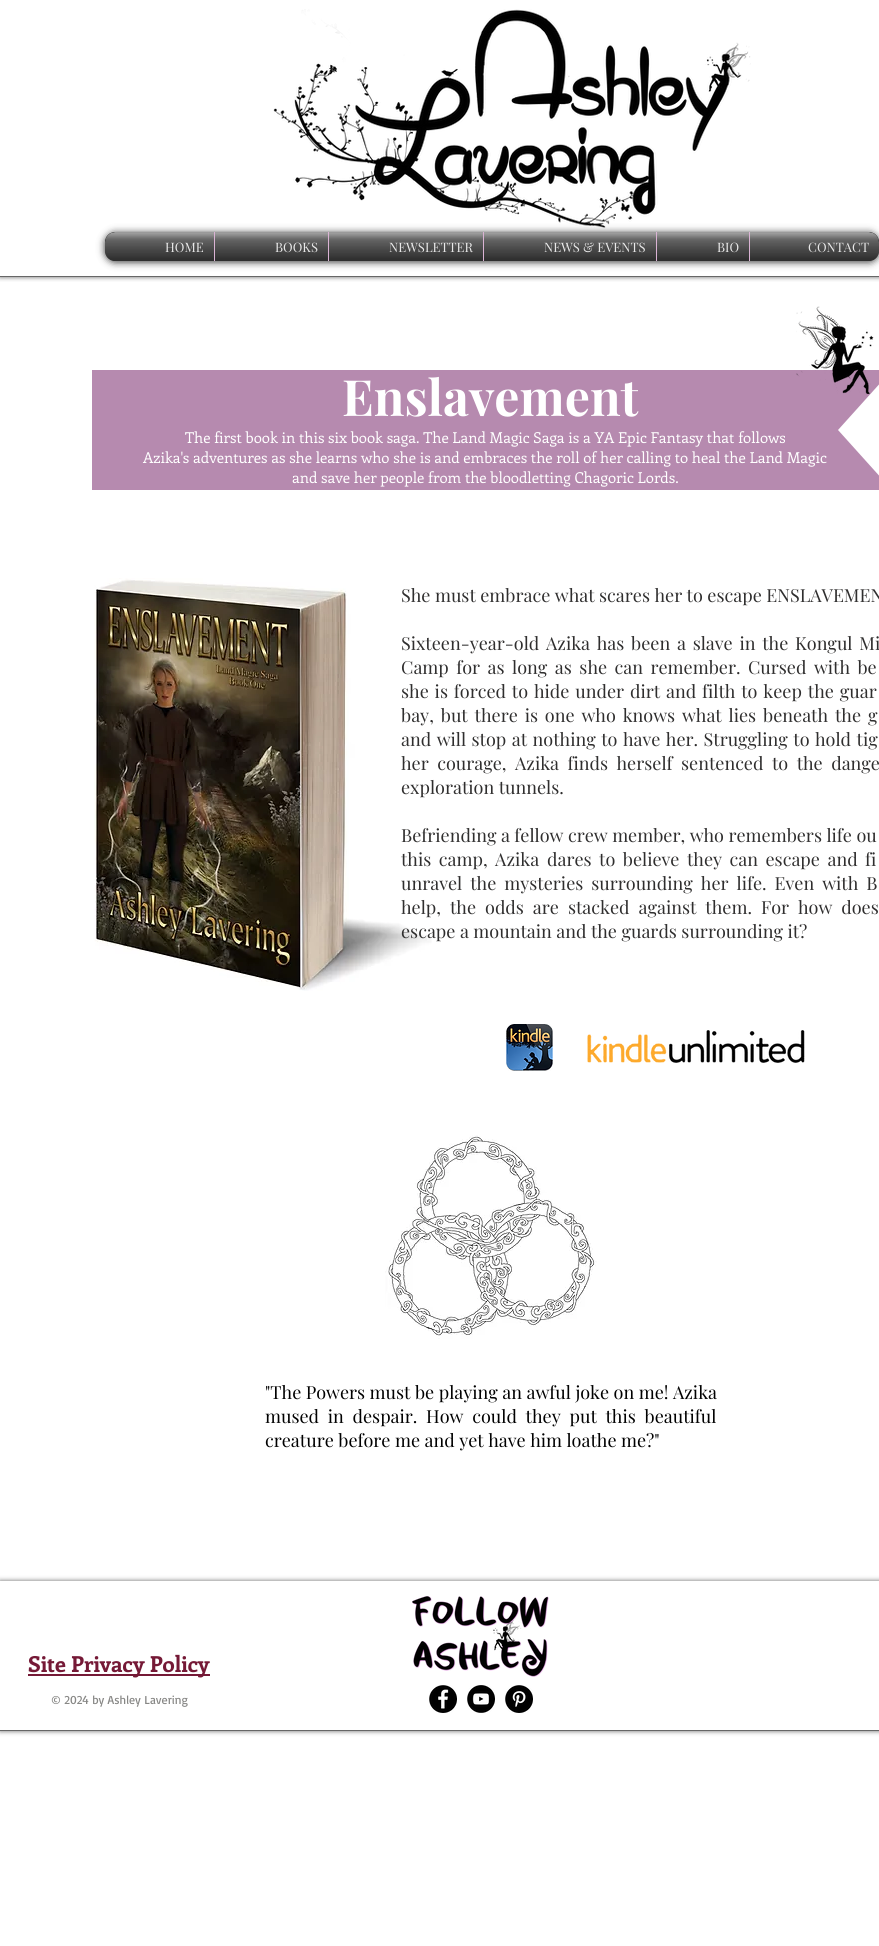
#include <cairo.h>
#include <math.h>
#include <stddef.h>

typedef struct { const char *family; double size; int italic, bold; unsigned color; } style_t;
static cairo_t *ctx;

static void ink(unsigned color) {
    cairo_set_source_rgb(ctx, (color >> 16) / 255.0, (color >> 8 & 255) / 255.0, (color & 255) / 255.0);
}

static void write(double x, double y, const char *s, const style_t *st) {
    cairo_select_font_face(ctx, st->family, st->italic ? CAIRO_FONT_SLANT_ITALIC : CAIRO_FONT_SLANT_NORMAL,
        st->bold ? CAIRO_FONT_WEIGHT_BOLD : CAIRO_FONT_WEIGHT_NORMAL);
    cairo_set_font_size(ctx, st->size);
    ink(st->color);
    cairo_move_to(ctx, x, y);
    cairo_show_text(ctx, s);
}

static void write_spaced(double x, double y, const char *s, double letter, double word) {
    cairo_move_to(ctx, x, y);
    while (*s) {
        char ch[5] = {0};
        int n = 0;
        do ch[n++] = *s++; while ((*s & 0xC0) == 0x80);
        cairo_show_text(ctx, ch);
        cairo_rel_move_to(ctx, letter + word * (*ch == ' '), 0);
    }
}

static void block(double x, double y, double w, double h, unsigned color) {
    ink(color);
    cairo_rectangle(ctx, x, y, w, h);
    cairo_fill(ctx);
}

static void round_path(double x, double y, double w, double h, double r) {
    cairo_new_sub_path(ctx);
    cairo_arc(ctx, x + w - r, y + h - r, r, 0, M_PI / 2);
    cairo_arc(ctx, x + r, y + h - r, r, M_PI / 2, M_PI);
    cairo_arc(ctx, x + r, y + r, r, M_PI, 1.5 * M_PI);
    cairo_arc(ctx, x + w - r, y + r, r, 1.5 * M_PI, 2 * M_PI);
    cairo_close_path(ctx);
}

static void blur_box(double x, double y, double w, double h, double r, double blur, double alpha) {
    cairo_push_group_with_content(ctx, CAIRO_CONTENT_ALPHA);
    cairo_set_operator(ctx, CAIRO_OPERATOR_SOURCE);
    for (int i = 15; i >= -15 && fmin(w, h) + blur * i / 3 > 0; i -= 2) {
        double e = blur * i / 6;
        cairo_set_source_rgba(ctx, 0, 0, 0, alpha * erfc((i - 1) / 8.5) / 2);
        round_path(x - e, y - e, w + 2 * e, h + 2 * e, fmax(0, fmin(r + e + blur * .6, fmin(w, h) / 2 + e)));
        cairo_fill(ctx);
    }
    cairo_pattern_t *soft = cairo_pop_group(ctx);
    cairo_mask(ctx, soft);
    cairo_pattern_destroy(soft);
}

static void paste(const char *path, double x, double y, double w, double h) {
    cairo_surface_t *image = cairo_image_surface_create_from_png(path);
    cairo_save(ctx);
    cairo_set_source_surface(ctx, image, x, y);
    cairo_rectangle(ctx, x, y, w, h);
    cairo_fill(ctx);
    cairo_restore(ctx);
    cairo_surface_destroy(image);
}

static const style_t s1 = {"Playfair Display", 13, 0, 0, 0xffffff};
static const style_t s2 = {"Playfair Display", 50, 0, 1, 0xffffff};
static const style_t s3 = {"Enriqueta", 15, 0, 0, 0xffffff};
static const style_t s4 = {"Playfair Display", 18, 0, 0, 0x2f2e2e};
static const style_t s5 = {"Playfair Display", 18, 0, 0, 0x000000};
static const style_t s6 = {"Enriqueta", 22, 0, 1, 0x751936};
static const style_t s7 = {"Basic", 12, 0, 0, 0x878785};

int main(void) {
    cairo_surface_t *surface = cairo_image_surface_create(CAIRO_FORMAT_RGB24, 879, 1946);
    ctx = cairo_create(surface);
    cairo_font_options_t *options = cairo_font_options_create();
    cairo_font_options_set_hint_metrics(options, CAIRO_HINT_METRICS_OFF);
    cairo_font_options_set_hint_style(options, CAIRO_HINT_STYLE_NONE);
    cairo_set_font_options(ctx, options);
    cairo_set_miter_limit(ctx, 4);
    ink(0xffffff);
    cairo_paint(ctx);
    cairo_save(ctx);
    cairo_rectangle(ctx, 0, 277, 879, 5);
    cairo_clip(ctx);
    ink(0x000000);
    blur_box(0, 0, 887, 277, 0, 2.5, 0.6);
    cairo_restore(ctx);
    block(0, 276, 879, 1, 0x666666);
    ink(0x000000);
    blur_box(105, 233, 774, 29, 10, 4, 0.8);
    paste("pic1.png", 273, 9, 478, 219);
    paste("pic2.png", 105, 232, 774, 29);
    paste("pic3.png", 105, 232, 774, 29);
    ink(0x1a1a1a);
    cairo_new_path(ctx);
    cairo_move_to(ctx, 115, 232);
    cairo_line_to(ctx, 214, 232);
    cairo_line_to(ctx, 214, 261);
    cairo_line_to(ctx, 115, 261);
    cairo_curve_to(ctx, 109.5, 261, 105, 256.5, 105, 251);
    cairo_line_to(ctx, 105, 242);
    cairo_curve_to(ctx, 105, 236.5, 109.5, 232, 115, 232);
    cairo_close_path(ctx);
    cairo_fill(ctx);
    write(165, 252, "HOME", &s1);
    paste("pic4.png", 105, 232, 109, 29);
    paste("pic5.png", 105, 232, 109, 29);
    block(215, 232, 113, 29, 0x1a1a1a);
    block(214, 232, 1, 29, 0xdab3d4);
    write(275, 252, "BOOKS", &s1);
    paste("pic6.png", 215, 232, 113, 29);
    paste("pic7.png", 215, 232, 113, 29);
    block(329, 232, 154, 29, 0x1a1a1a);
    block(328, 232, 1, 29, 0xdab3d4);
    write(389, 252, "NEWSLETTER", &s1);
    paste("pic8.png", 329, 232, 154, 29);
    paste("pic9.png", 329, 232, 154, 29);
    block(484, 232, 172, 29, 0x1a1a1a);
    block(483, 232, 1, 29, 0xdab3d4);
    write(544, 252, "NEWS & EVENTS", &s1);
    paste("pic10.png", 484, 232, 172, 29);
    paste("pic11.png", 484, 232, 172, 29);
    block(657, 232, 92, 29, 0x1a1a1a);
    block(656, 232, 1, 29, 0xdab3d4);
    write(717, 252, "BIO", &s1);
    paste("pic12.png", 657, 232, 92, 29);
    paste("pic13.png", 657, 232, 92, 29);
    ink(0x1a1a1a);
    cairo_new_path(ctx);
    cairo_move_to(ctx, 749, 232);
    cairo_line_to(ctx, 869, 232);
    cairo_curve_to(ctx, 874.5, 232, 879, 236.5, 879, 242);
    cairo_line_to(ctx, 879, 251);
    cairo_curve_to(ctx, 879, 256.5, 874.5, 261, 869, 261);
    cairo_line_to(ctx, 749, 261);
    cairo_close_path(ctx);
    cairo_fill(ctx);
    block(749, 232, 1, 29, 0xdab3d4);
    write(808, 252, "CONTACT", &s1);
    paste("pic14.png", 750, 232, 129, 29);
    paste("pic15.png", 750, 232, 129, 29);
    ink(0xb68aaf);
    cairo_new_path(ctx);
    cairo_move_to(ctx, 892, 490);
    cairo_line_to(ctx, 92, 490);
    cairo_line_to(ctx, 92, 370);
    cairo_line_to(ctx, 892, 370);
    cairo_line_to(ctx, 838, 430);
    cairo_close_path(ctx);
    cairo_fill(ctx);
    paste("pic16.png", 796, 306, 78, 88);
    write(342, 416, "Enslavement", &s2);
    write(185, 443, "The first book in this six book saga. The Land Magic Saga is a YA Epic Fantasy that follows", &s3);
    write(143, 463, "Azika's adventures as she learns who she is and embraces the roll of her calling to heal the Land Magic", &s3);
    write(292, 483, "and save her people from the bloodletting Chagoric Lords.", &s3);
    paste("pic17.png", 94, 578, 338, 413);
    write(401, 602, "She must embrace what scares her to escape ENSLAVEMEN", &s4);
    write(401, 650, "Sixteen-year-old", &s4);
    write_spaced(546, 650, "Azika has been a slave in the Kongul Mi", 0, 2.25);
    write_spaced(401, 674, "Camp for as long as she can remember. Cursed with be", 0, 3);
    write_spaced(401, 698, "she is forced to hide under dirt and filth to keep the guar", 0, 1.4);
    write_spaced(401, 722, "bay, but there is one who knows what lies beneath the g", 0, 2.4);
    write_spaced(401, 746, "and will stop at nothing to have her. Struggling to hold tig", 0, 1);
    write_spaced(401, 770, "her courage, Azika finds herself sentenced to the dange", 0, 4);
    write(401, 794, "exploration tunnels.", &s4);
    write(401, 842, "Befriending a fellow crew member, who remembers life ou", &s4);
    write_spaced(401, 866, "this camp, Azika", 0, 3);
    write_spaced(547, 866, "dares to believe they can escape and fi", 0, 3);
    write_spaced(401, 890, "unravel the mysteries surrounding her life. Even with B", 0, 3.5);
    write_spaced(401, 914, "help, the odds are stacked against them. For how does", 0, 4.5);
    write(401, 938, "escape a mountain and the guards surrounding it?", &s4);
    paste("pic18.png", 506, 1024, 47, 47);
    paste("pic19.png", 587, 1030, 218, 33);
    paste("pic20.png", 385, 1135, 212, 204);
    write(265, 1399, "\"The Powers must be playing an awful joke on me! Azika", &s5);
    write_spaced(265, 1423, "mused in despair. How could they put this beautiful", 0, 4.25);
    write(265, 1447, "creature before me and yet have him loathe me?\"", &s5);
    cairo_save(ctx);
    cairo_set_fill_rule(ctx, CAIRO_FILL_RULE_EVEN_ODD);
    cairo_new_path(ctx);
    cairo_move_to(ctx, 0, 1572);
    cairo_line_to(ctx, 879, 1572);
    cairo_line_to(ctx, 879, 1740);
    cairo_line_to(ctx, 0, 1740);
    cairo_close_path(ctx);
    cairo_move_to(ctx, 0, 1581);
    cairo_line_to(ctx, 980, 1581);
    cairo_line_to(ctx, 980, 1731);
    cairo_line_to(ctx, 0, 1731);
    cairo_close_path(ctx);
    cairo_clip(ctx);
    ink(0x000000);
    blur_box(0, 1581, 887, 150, 0, 2.5, 0.6);
    cairo_restore(ctx);
    block(0, 1730, 879, 1, 0x666666);
    block(28, 1674, 182, 2, 0x751936);
    write(28, 1672, "Site Privacy Policy", &s6);
    paste("pic21.png", 412, 1596, 137, 81);
    write(51, 1704, "© 2024 by Ashley Lavering", &s7);
    paste("pic22.png", 429, 1685, 28, 28);
    paste("pic23.png", 467, 1685, 28, 28);
    paste("pic24.png", 505, 1685, 28, 28);
    cairo_surface_write_to_png(surface, "screenshot.png");
    cairo_font_options_destroy(options);
    cairo_destroy(ctx);
    cairo_surface_destroy(surface);
    return 0;
}
